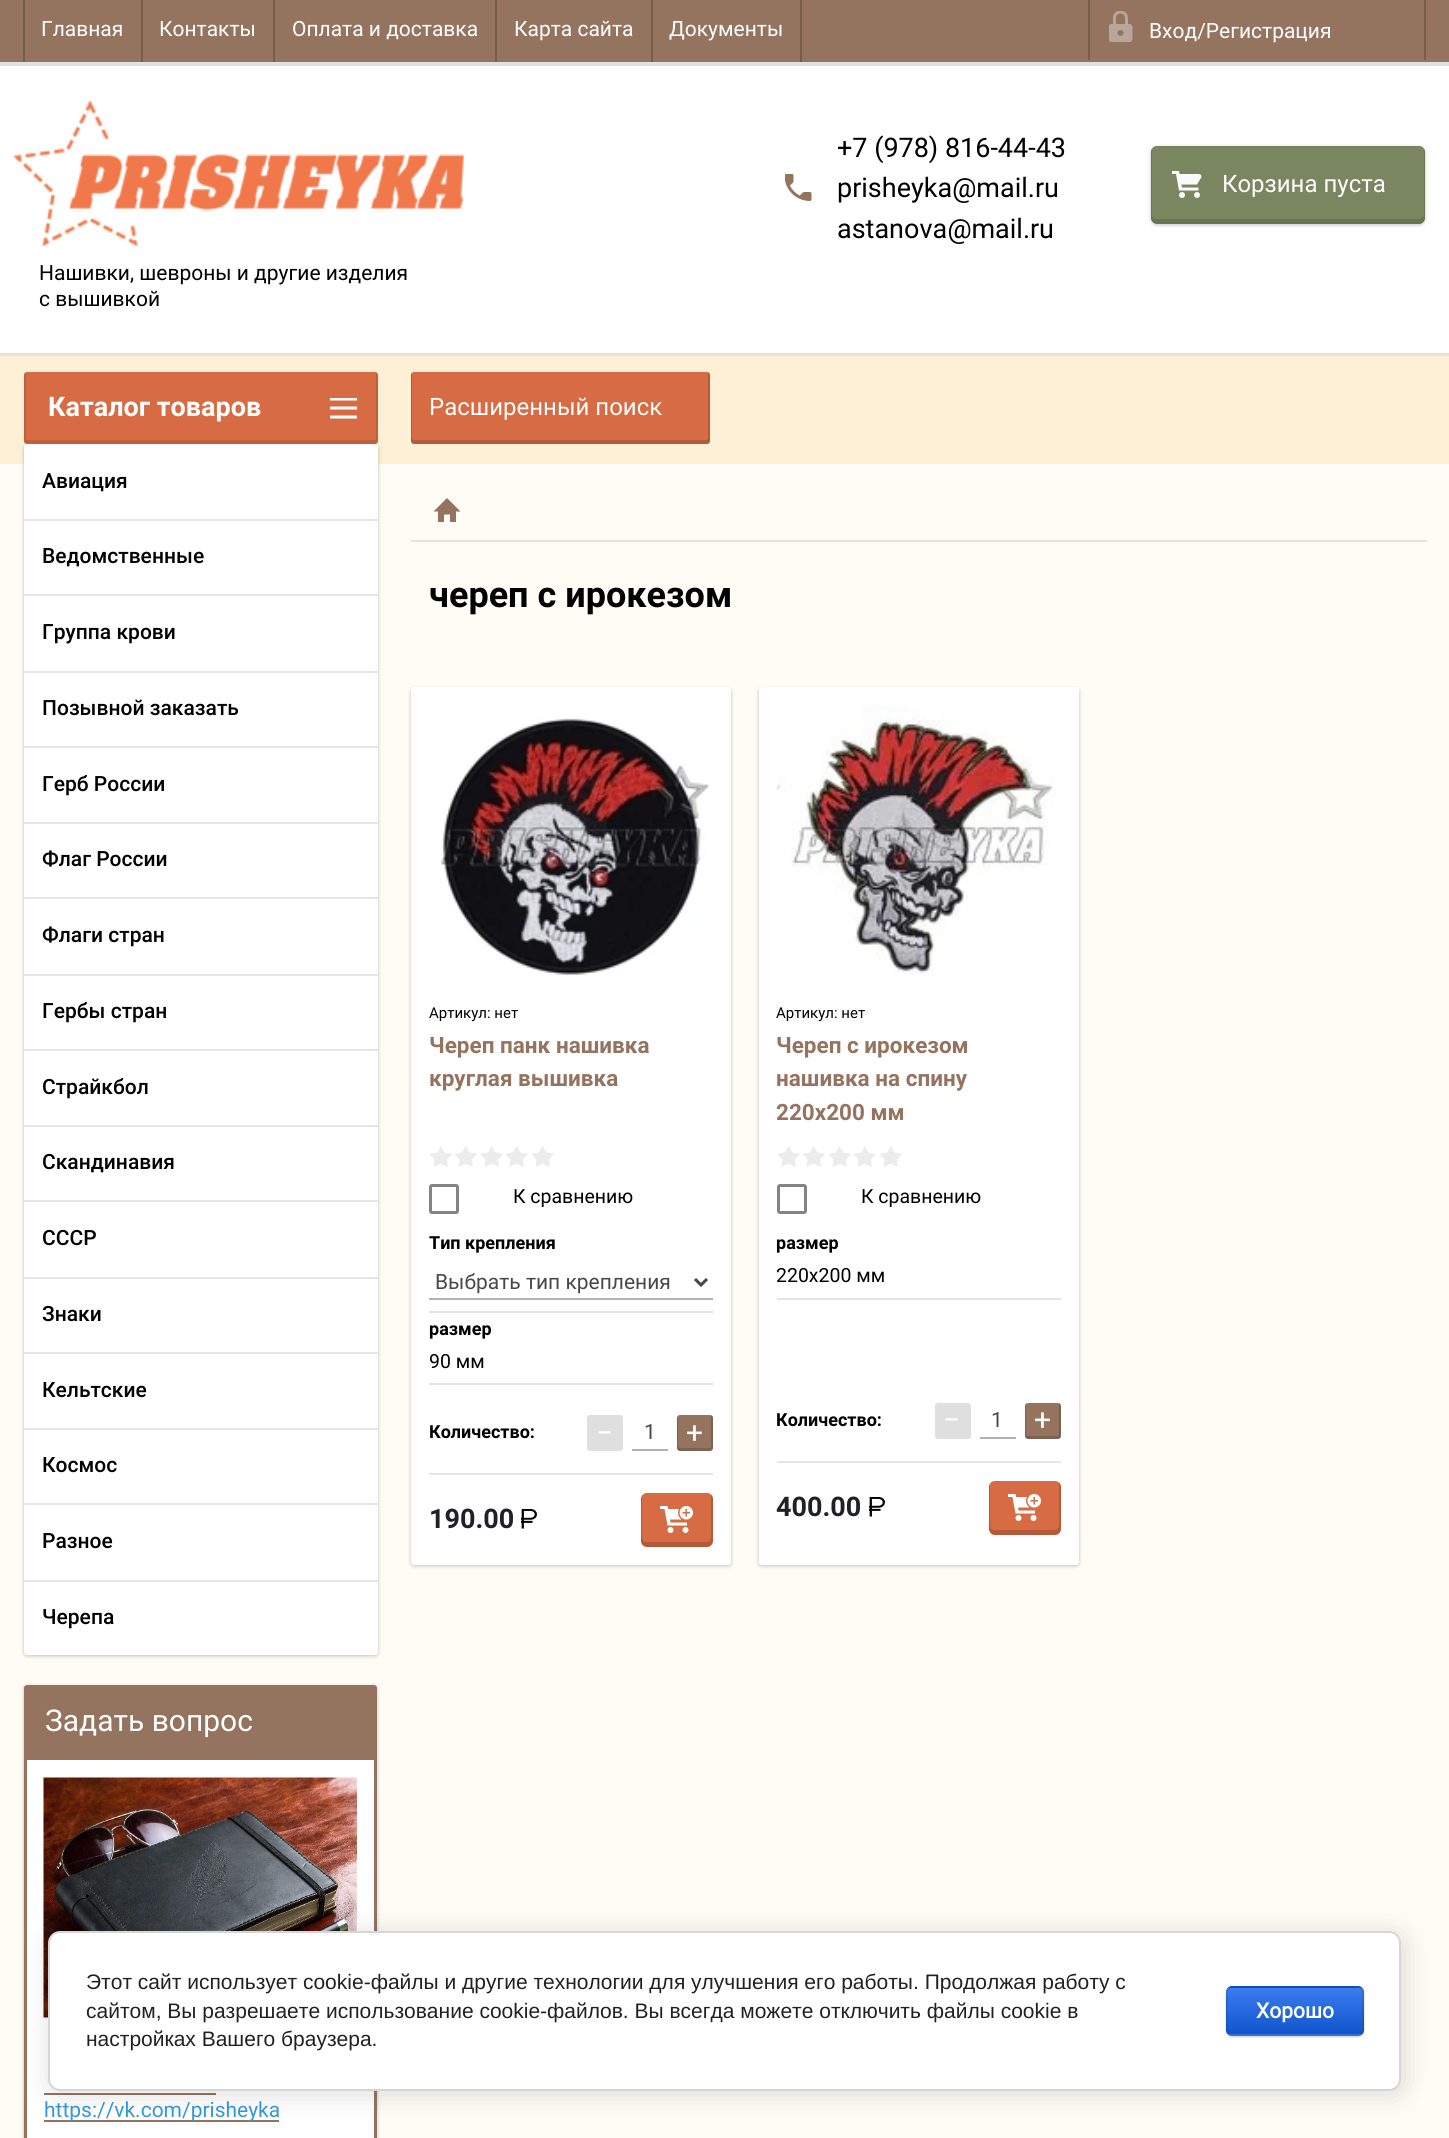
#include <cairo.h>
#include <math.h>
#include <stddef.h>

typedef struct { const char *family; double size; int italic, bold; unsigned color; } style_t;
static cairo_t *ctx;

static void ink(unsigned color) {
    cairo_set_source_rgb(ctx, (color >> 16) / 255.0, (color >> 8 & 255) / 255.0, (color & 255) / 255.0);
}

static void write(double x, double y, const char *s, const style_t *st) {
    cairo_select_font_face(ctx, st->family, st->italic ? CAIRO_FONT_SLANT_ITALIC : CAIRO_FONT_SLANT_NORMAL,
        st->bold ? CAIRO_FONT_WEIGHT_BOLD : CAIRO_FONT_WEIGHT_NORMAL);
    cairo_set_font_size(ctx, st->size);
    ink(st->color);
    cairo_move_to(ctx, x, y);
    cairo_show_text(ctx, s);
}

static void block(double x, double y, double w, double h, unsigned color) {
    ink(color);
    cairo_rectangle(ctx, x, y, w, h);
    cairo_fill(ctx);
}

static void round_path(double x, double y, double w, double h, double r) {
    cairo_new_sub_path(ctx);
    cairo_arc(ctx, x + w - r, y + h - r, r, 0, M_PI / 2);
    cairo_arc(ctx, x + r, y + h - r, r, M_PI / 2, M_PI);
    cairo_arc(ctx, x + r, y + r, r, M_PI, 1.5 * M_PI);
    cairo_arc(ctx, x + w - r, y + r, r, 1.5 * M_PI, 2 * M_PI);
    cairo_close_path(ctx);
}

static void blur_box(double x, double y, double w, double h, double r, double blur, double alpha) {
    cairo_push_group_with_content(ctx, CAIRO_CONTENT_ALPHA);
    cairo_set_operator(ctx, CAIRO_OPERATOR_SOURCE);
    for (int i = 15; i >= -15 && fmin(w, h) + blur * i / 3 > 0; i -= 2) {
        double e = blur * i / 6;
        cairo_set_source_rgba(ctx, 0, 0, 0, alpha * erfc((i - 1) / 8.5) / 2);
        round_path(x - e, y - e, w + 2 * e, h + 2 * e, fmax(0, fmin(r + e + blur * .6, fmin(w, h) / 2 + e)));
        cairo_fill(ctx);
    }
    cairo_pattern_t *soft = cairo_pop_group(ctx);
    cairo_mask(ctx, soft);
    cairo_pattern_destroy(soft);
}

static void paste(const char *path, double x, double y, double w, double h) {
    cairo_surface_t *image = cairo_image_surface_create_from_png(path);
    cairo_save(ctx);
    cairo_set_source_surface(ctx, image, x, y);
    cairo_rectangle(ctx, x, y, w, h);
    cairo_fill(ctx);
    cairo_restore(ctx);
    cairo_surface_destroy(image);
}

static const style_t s1 = {"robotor", 21, 0, 0, 0xffffff};
static const style_t s2 = {"robotor", 27, 0, 0, 0x000000};
static const style_t s3 = {"robotor", 24, 0, 0, 0xffffff};
static const style_t s4 = {"robotor", 21, 0, 0, 0x000000};
static const style_t s5 = {"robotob", 27, 0, 1, 0xffffff};
static const style_t s6 = {"Roboto Medium", 21, 0, 0, 0x000000};
static const style_t s7 = {"robotor", 30, 0, 0, 0xffffff};
static const style_t s8 = {"robotor", 21, 0, 0, 0x3498db};
static const style_t s9 = {"robotob", 36, 0, 1, 0x000000};
static const style_t s10 = {"robotor", 15, 0, 0, 0x000000};
static const style_t s11 = {"robotob", 22.5, 0, 1, 0x94745f};
static const style_t s12 = {"robotor", 19.5, 0, 0, 0x000000};
static const style_t s13 = {"robotob", 18, 0, 1, 0x000000};
static const style_t s14 = {"robotor", 21, 0, 0, 0x484848};
static const style_t s15 = {"robotob", 27, 0, 1, 0x20202a};
static const style_t s16 = {"Liberation Sans", 21, 0, 0, 0x212121};
static const style_t s17 = {"robotor", 21, 0, 1, 0xffffff};

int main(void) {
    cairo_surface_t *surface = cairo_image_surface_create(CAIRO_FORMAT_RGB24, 1449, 2138);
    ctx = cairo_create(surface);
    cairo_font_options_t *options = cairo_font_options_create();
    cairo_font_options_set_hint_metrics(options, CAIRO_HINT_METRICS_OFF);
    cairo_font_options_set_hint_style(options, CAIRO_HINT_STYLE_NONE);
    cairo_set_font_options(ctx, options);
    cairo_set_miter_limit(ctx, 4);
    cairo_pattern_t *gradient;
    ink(0xfffcf6);
    cairo_paint(ctx);
    block(0, 66, 1449, 287, 0xffffff);
    block(0, 62, 1449, 4, 0xe0e0e0);
    block(0, 0, 1449, 62, 0x94745f);
    block(23, 0, 2, 62, 0x765d4c);
    write(41, 36, "Главная", &s1);
    block(141, 0, 2, 62, 0x765d4c);
    write(159, 36, "Контакты", &s1);
    block(273, 0, 2, 62, 0x765d4c);
    write(292, 36, "Оплата и доставка", &s1);
    block(495, 0, 2, 62, 0x765d4c);
    write(514, 36, "Карта сайта", &s1);
    block(651, 0, 2, 62, 0x765d4c);
    write(669, 36, "Документы", &s1);
    block(800, 0, 2, 62, 0x765d4c);
    block(1088, 0, 2, 60, 0x765d4c);
    paste("pic1.png", 1109, 11, 24, 31);
    write(1149, 38, "Вход/Регистрация", &s1);
    block(1424, 0, 2, 60, 0x765d4c);
    write(837, 157, "+7 (978) 816-44-43", &s2);
    paste("pic2.png", 785, 174, 27, 27);
    write(837, 197, "prisheyka@mail.ru", &s2);
    write(837, 238, "astanova@mail.ru", &s2);
    ink(0x000000);
    blur_box(1151, 147, 274, 78, 6, 2, 0.24);
    ink(0x7a8660);
    round_path(1151, 146, 274, 78, 6);
    cairo_fill(ctx);
    cairo_set_source_rgba(ctx, 0, 0, 0, 0.14);
    cairo_new_path(ctx);
    cairo_move_to(ctx, 1152, 149);
    cairo_curve_to(ctx, 1151, 150, 1151, 151, 1151, 152);
    cairo_line_to(ctx, 1151, 218);
    cairo_curve_to(ctx, 1151, 221, 1154, 224, 1157, 224);
    cairo_line_to(ctx, 1419, 224);
    cairo_curve_to(ctx, 1422, 224, 1425, 221, 1425, 218);
    cairo_line_to(ctx, 1425, 152);
    cairo_curve_to(ctx, 1425, 151, 1425, 150, 1424, 149);
    cairo_line_to(ctx, 1424, 214);
    cairo_curve_to(ctx, 1424, 217, 1421, 219, 1419, 219);
    cairo_line_to(ctx, 1156, 219);
    cairo_curve_to(ctx, 1154, 219, 1152, 217, 1152, 214);
    cairo_close_path(ctx);
    cairo_fill(ctx);
    paste("pic3.png", 1172, 171, 30, 27);
    write(1222, 192, "Корзина пуста", &s3);
    paste("pic4.png", 13, 100, 451, 146);
    write(39, 280, "Нашивки, шевроны и другие изделия", &s4);
    write(39, 306, "с вышивкой", &s4);
    block(0, 464, 1449, 1, 0xffffff);
    block(0, 356, 1449, 108, 0xfeefd7);
    block(0, 353, 1449, 3, 0xefe1ca);
    ink(0x000000);
    blur_box(24, 446, 354, 1210, 3, 2, 0.24);
    ink(0xd76b44);
    round_path(24, 372, 354, 72, 3);
    cairo_fill(ctx);
    cairo_set_source_rgba(ctx, 0, 0, 0, 0.11);
    cairo_new_path(ctx);
    cairo_move_to(ctx, 26, 372);
    cairo_curve_to(ctx, 25, 373, 24, 374, 24, 375);
    cairo_line_to(ctx, 24, 441);
    cairo_curve_to(ctx, 24, 443, 25, 444, 27, 444);
    cairo_line_to(ctx, 375, 444);
    cairo_curve_to(ctx, 377, 444, 378, 443, 378, 441);
    cairo_line_to(ctx, 378, 375);
    cairo_curve_to(ctx, 378, 374, 377, 373, 376, 372);
    cairo_line_to(ctx, 376, 438);
    cairo_curve_to(ctx, 376, 439, 376, 440, 375, 440);
    cairo_line_to(ctx, 27, 440);
    cairo_curve_to(ctx, 26, 440, 26, 439, 26, 438);
    cairo_close_path(ctx);
    cairo_fill(ctx);
    write(48, 416, "Каталог товаров", &s5);
    paste("pic5.png", 330, 398, 27, 21);
    round_path(24, 444, 354, 1211, 3);
    cairo_fill(ctx);
    write(42, 488, "Авиация", &s6);
    block(24, 519, 354, 2, 0xe6e6e6);
    write(42, 563, "Ведомственные", &s6);
    block(24, 594, 354, 2, 0xe6e6e6);
    write(42, 639, "Группа крови", &s6);
    block(24, 671, 354, 2, 0xe6e6e6);
    write(42, 715, "Позывной заказать", &s6);
    block(24, 746, 354, 2, 0xe6e6e6);
    write(42, 791, "Герб России", &s6);
    block(24, 822, 354, 2, 0xe6e6e6);
    write(42, 866, "Флаг России", &s6);
    block(24, 897, 354, 2, 0xe6e6e6);
    write(42, 942, "Флаги стран", &s6);
    block(24, 974, 354, 2, 0xe6e6e6);
    write(42, 1018, "Гербы стран", &s6);
    block(24, 1049, 354, 2, 0xe6e6e6);
    write(42, 1094, "Страйкбол", &s6);
    block(24, 1125, 354, 2, 0xe6e6e6);
    write(42, 1169, "Скандинавия", &s6);
    block(24, 1200, 354, 2, 0xe6e6e6);
    write(42, 1245, "СССР", &s6);
    block(24, 1277, 354, 2, 0xe6e6e6);
    write(42, 1321, "Знаки", &s6);
    block(24, 1352, 354, 2, 0xe6e6e6);
    write(42, 1397, "Кельтские", &s6);
    block(24, 1428, 354, 2, 0xe6e6e6);
    write(42, 1472, "Космос", &s6);
    block(24, 1503, 354, 2, 0xe6e6e6);
    write(42, 1548, "Разное", &s6);
    block(24, 1580, 354, 2, 0xe6e6e6);
    write(42, 1624, "Черепа", &s6);
    ink(0x000000);
    blur_box(24, 1686, 353, 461, 3, 2, 0.24);
    ink(0x94745f);
    round_path(24, 1685, 353, 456, 3);
    cairo_fill(ctx);
    write(45, 1731, "Задать вопрос", &s7);
    block(27, 1760, 347, 378, 0xffffff);
    paste("pic6.png", 43, 1777, 314, 241);
    block(44, 2093, 172, 2, 0x94745f);
    block(44, 2120, 235, 2, 0x94745f);
    write(44, 2117, "https://vk.com/prisheyka", &s8);
    ink(0xd76b44);
    round_path(411, 372, 299, 72, 3);
    cairo_fill(ctx);
    cairo_set_source_rgba(ctx, 0, 0, 0, 0.16);
    cairo_new_path(ctx);
    cairo_move_to(ctx, 412, 373);
    cairo_curve_to(ctx, 411, 373, 411, 374, 411, 375);
    cairo_line_to(ctx, 411, 441);
    cairo_curve_to(ctx, 411, 443, 412, 444, 414, 444);
    cairo_line_to(ctx, 707, 444);
    cairo_curve_to(ctx, 709, 444, 710, 443, 710, 441);
    cairo_line_to(ctx, 710, 375);
    cairo_curve_to(ctx, 710, 374, 709, 373, 708, 372);
    cairo_line_to(ctx, 708, 438);
    cairo_curve_to(ctx, 708, 439, 707, 440, 706, 440);
    cairo_line_to(ctx, 414, 440);
    cairo_curve_to(ctx, 413, 440, 412, 439, 412, 438);
    cairo_close_path(ctx);
    cairo_fill(ctx);
    write(429, 415, "Расширенный поиск", &s3);
    block(411, 540, 1016, 2, 0xe1e2e3);
    paste("pic7.png", 434, 498, 27, 24);
    write(429, 607, "череп с ирокезом", &s9);
    ink(0x000000);
    blur_box(411, 689, 320, 877, 3, 2, 0.24);
    ink(0xffffff);
    round_path(411, 687, 320, 878, 3);
    cairo_fill(ctx);
    paste("pic8.png", 441, 718, 269, 257);
    write(429, 1018, "Артикул: нет", &s10);
    write(429, 1053, "Череп панк нашивка", &s11);
    write(429, 1086, "круглая вышивка", &s11);
    paste("pic9.png", 429, 1146, 125, 21);
    round_path(430.5, 1185.5, 27, 27, 1.5);
    ink(0x848484);
    cairo_set_line_width(ctx, 3);
    cairo_stroke(ctx);
    write(513, 1203, "К сравнению", &s12);
    block(429, 1311, 284, 2, 0xe3e3e3);
    write(429, 1249, "Тип крепления", &s13);
    block(429, 1298, 284, 2, 0xb2b2b2);
    cairo_new_path(ctx);
    cairo_move_to(ctx, 695, 1279);
    cairo_line_to(ctx, 701, 1285);
    cairo_line_to(ctx, 707, 1279);
    ink(0x484848);
    cairo_stroke(ctx);
    write(435, 1289, "Выбрать тип крепления", &s14);
    block(429, 1383, 284, 2, 0xe3e3e3);
    write(429, 1335, "размер", &s13);
    write(429, 1368, "90 мм", &s12);
    block(429, 1473, 284, 2, 0xe5e5e5);
    write(429, 1438, "Количество:", &s13);
    ink(0xdfdfdf);
    round_path(587, 1415, 36, 36, 3);
    cairo_fill(ctx);
    write(596, 1443, "−", &s7);
    block(632, 1449, 36, 2, 0xb2b2b2);
    write(644, 1439, "1", &s14);
    ink(0x94745f);
    round_path(677, 1415, 36, 36, 3);
    cairo_fill(ctx);
    cairo_set_source_rgba(ctx, 0, 0, 0, 0.16);
    cairo_new_path(ctx);
    cairo_move_to(ctx, 678, 1415.5);
    cairo_curve_to(ctx, 677.5, 1416.5, 677, 1417, 677, 1418);
    cairo_line_to(ctx, 677, 1448);
    cairo_curve_to(ctx, 677, 1449.5, 678.5, 1451, 680, 1451);
    cairo_line_to(ctx, 710, 1451);
    cairo_curve_to(ctx, 711.5, 1451, 713, 1449.5, 713, 1448);
    cairo_line_to(ctx, 713, 1418);
    cairo_curve_to(ctx, 713, 1416.5, 712, 1415.5, 711, 1415);
    cairo_line_to(ctx, 711, 1446.5);
    cairo_line_to(ctx, 710, 1448);
    cairo_line_to(ctx, 679.5, 1448);
    cairo_curve_to(ctx, 677, 1447.5, 678, 1442, 678, 1441);
    cairo_close_path(ctx);
    cairo_fill(ctx);
    write(686, 1443, "+", &s7);
    write(429, 1528, "190.00", &s15);
    paste("pic10.png", 521, 1509, 16, 20);
    ink(0xd76b44);
    round_path(641, 1493, 72, 54, 6);
    cairo_fill(ctx);
    cairo_set_source_rgba(ctx, 0, 0, 0, 0.16);
    cairo_new_path(ctx);
    cairo_move_to(ctx, 642, 1496);
    cairo_curve_to(ctx, 641, 1497, 641, 1498, 641, 1499);
    cairo_line_to(ctx, 641, 1541);
    cairo_curve_to(ctx, 641, 1544, 644, 1547, 647, 1547);
    cairo_line_to(ctx, 707, 1547);
    cairo_curve_to(ctx, 710, 1547, 713, 1544, 713, 1541);
    cairo_line_to(ctx, 713, 1499);
    cairo_curve_to(ctx, 713, 1497, 712, 1495, 711, 1494);
    cairo_line_to(ctx, 711, 1524);
    cairo_curve_to(ctx, 711, 1543, 714, 1542, 696, 1542);
    cairo_line_to(ctx, 656, 1542);
    cairo_curve_to(ctx, 642, 1542, 642, 1544, 642, 1531);
    cairo_close_path(ctx);
    cairo_fill(ctx);
    paste("pic11.png", 660, 1506, 33, 27);
    ink(0x000000);
    blur_box(759, 689, 320, 877, 3, 2, 0.24);
    ink(0xffffff);
    round_path(759, 687, 320, 878, 3);
    cairo_fill(ctx);
    paste("pic12.png", 777, 705, 277, 270);
    write(776, 1018, "Артикул: нет", &s10);
    write(776, 1053, "Череп с ирокезом", &s11);
    write(776, 1086, "нашивка на спину", &s11);
    write(776, 1120, "220х200 мм", &s11);
    paste("pic9.png", 777, 1146, 125, 21);
    round_path(778.5, 1185.5, 27, 27, 1.5);
    ink(0x848484);
    cairo_stroke(ctx);
    write(861, 1203, "К сравнению", &s12);
    block(777, 1298, 284, 2, 0xe3e3e3);
    write(776, 1249, "размер", &s13);
    write(776, 1282, "220х200 мм", &s12);
    block(777, 1461, 284, 2, 0xe5e5e5);
    write(776, 1426, "Количество:", &s13);
    ink(0xdfdfdf);
    round_path(935, 1403, 36, 36, 3);
    cairo_fill(ctx);
    write(943, 1430, "−", &s7);
    block(980, 1437, 36, 2, 0xb2b2b2);
    write(991, 1427, "1", &s14);
    ink(0x94745f);
    round_path(1025, 1403, 36, 36, 3);
    cairo_fill(ctx);
    cairo_set_source_rgba(ctx, 0, 0, 0, 0.16);
    cairo_new_path(ctx);
    cairo_move_to(ctx, 1026, 1403.5);
    cairo_curve_to(ctx, 1025.5, 1404.5, 1025, 1405, 1025, 1406);
    cairo_line_to(ctx, 1025, 1436);
    cairo_curve_to(ctx, 1025, 1437.5, 1026.5, 1439, 1028, 1439);
    cairo_line_to(ctx, 1058, 1439);
    cairo_curve_to(ctx, 1059.5, 1439, 1061, 1437.5, 1061, 1436);
    cairo_line_to(ctx, 1061, 1406);
    cairo_curve_to(ctx, 1061, 1404.5, 1060, 1403.5, 1059, 1403);
    cairo_line_to(ctx, 1059, 1434.5);
    cairo_line_to(ctx, 1058, 1436);
    cairo_line_to(ctx, 1027.5, 1436);
    cairo_curve_to(ctx, 1025, 1435.5, 1026, 1430, 1026, 1429);
    cairo_close_path(ctx);
    cairo_fill(ctx);
    write(1034, 1430, "+", &s7);
    write(776, 1516, "400.00", &s15);
    paste("pic10.png", 869, 1497, 16, 20);
    ink(0xd76b44);
    round_path(989, 1481, 72, 54, 6);
    cairo_fill(ctx);
    cairo_set_source_rgba(ctx, 0, 0, 0, 0.16);
    cairo_new_path(ctx);
    cairo_move_to(ctx, 990, 1484);
    cairo_curve_to(ctx, 989, 1485, 989, 1486, 989, 1487);
    cairo_line_to(ctx, 989, 1529);
    cairo_curve_to(ctx, 989, 1532, 992, 1535, 995, 1535);
    cairo_line_to(ctx, 1055, 1535);
    cairo_curve_to(ctx, 1058, 1535, 1061, 1532, 1061, 1529);
    cairo_line_to(ctx, 1061, 1487);
    cairo_curve_to(ctx, 1061, 1485, 1060, 1483, 1059, 1482);
    cairo_line_to(ctx, 1059, 1512);
    cairo_curve_to(ctx, 1059, 1531, 1062, 1530, 1044, 1530);
    cairo_line_to(ctx, 1004, 1530);
    cairo_curve_to(ctx, 990, 1530, 990, 1532, 990, 1519);
    cairo_close_path(ctx);
    cairo_fill(ctx);
    paste("pic11.png", 1008, 1494, 33, 27);
    ink(0x000000);
    blur_box(51, 1934, 1353, 160, 12, 13.5, 0.14);
    ink(0xffffff);
    round_path(49, 1932, 1351, 158, 11);
    cairo_fill_preserve(ctx);
    ink(0xd6d6d6);
    cairo_set_line_width(ctx, 2);
    cairo_stroke(ctx);
    write(86, 1989, "Этот сайт использует cookie-файлы и другие технологии для улучшения его работы. Продолжая работу с", &s16);
    write(86, 2018, "сайтом, Вы разрешаете использование cookie-файлов. Вы всегда можете отключить файлы cookie в", &s16);
    write(86, 2046, "настройках Вашего браузера.", &s16);
    ink(0x000000);
    blur_box(1226, 1988, 138, 49, 6, 1, 0.2);
    cairo_save(ctx);
    round_path(1226, 1986, 138, 50, 6);
    cairo_clip(ctx);
    gradient = cairo_pattern_create_linear(1295, 1941, 1295, 1988);
    cairo_pattern_add_color_stop_rgba(gradient, 0, 0.231, 0.486, 0.937, 1);
    cairo_pattern_add_color_stop_rgba(gradient, 1, 0.067, 0.333, 0.8, 1);
    cairo_set_source(ctx, gradient);
    cairo_pattern_destroy(gradient);
    cairo_rectangle(ctx, 1226, 1986, 138, 2);
    cairo_fill(ctx);
    gradient = cairo_pattern_create_linear(1295, 1988, 1295, 2034);
    cairo_pattern_add_color_stop_rgba(gradient, 0, 0.231, 0.486, 0.937, 1);
    cairo_pattern_add_color_stop_rgba(gradient, 1, 0.067, 0.333, 0.8, 1);
    cairo_set_source(ctx, gradient);
    cairo_pattern_destroy(gradient);
    cairo_rectangle(ctx, 1226, 1988, 138, 46);
    cairo_fill(ctx);
    gradient = cairo_pattern_create_linear(1295, 2034, 1295, 2081);
    cairo_pattern_add_color_stop_rgba(gradient, 0, 0.231, 0.486, 0.937, 1);
    cairo_pattern_add_color_stop_rgba(gradient, 1, 0.067, 0.333, 0.8, 1);
    cairo_set_source(ctx, gradient);
    cairo_pattern_destroy(gradient);
    cairo_rectangle(ctx, 1226, 2034, 138, 2);
    cairo_fill(ctx);
    cairo_restore(ctx);
    round_path(1227, 1987, 136, 48, 5);
    cairo_set_source_rgba(ctx, 0, 0, 0, 0.1);
    cairo_stroke(ctx);
    write(1256, 2018, "Хорошо", &s17);
    cairo_surface_write_to_png(surface, "screenshot.png");
    cairo_font_options_destroy(options);
    cairo_destroy(ctx);
    cairo_surface_destroy(surface);
    return 0;
}
